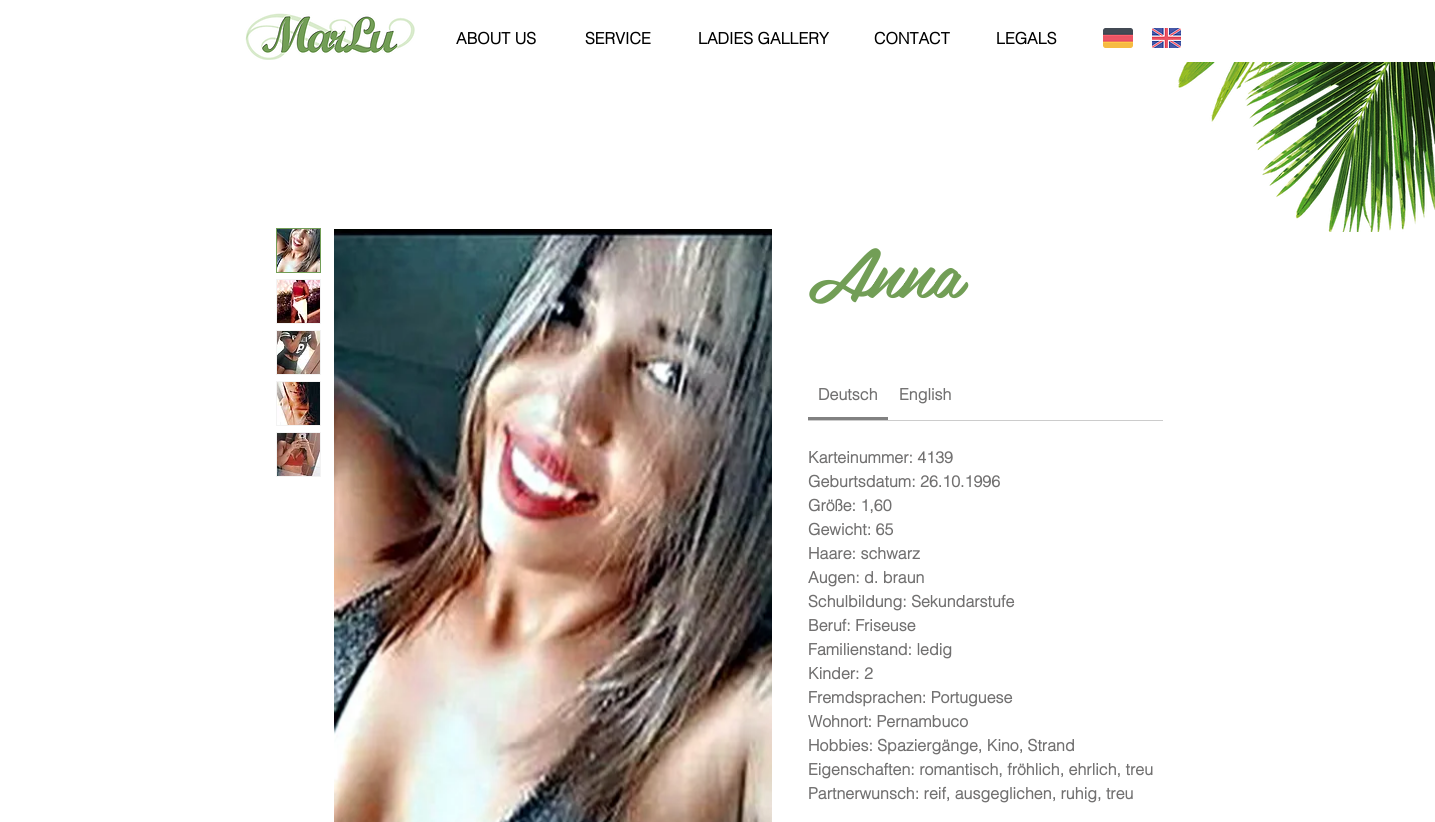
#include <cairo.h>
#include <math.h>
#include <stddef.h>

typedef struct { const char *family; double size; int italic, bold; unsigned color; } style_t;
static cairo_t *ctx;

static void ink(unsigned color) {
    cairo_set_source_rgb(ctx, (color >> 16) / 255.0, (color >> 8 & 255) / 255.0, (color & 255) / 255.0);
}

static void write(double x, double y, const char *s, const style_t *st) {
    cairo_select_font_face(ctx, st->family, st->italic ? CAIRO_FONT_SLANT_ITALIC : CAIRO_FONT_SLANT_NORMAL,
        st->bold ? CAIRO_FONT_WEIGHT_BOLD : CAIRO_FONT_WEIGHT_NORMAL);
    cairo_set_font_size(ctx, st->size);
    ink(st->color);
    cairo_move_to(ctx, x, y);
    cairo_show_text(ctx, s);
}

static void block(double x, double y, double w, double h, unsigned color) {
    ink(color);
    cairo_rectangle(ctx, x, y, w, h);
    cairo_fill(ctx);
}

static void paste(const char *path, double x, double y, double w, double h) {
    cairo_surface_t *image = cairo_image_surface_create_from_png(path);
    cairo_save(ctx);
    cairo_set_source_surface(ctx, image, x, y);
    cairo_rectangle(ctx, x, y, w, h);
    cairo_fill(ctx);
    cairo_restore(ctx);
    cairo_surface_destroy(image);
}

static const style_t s1 = {"helvetica", 16, 0, 1, 0x000000};
static const style_t s2 = {"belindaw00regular", 70, 0, 0, 0x729e56};
static const style_t s3 = {"helvetica", 16, 0, 1, 0x717070};

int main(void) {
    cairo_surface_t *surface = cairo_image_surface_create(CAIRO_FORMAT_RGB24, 1435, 822);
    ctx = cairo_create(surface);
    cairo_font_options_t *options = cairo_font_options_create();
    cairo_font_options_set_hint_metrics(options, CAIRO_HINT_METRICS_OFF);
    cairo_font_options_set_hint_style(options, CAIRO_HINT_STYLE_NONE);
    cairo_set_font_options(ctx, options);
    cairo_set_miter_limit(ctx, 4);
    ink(0xffffff);
    cairo_paint(ctx);
    paste("pic1.png", 245, 13, 170, 47);
    write(456, 44, "ABOUT US", &s1);
    write(585, 44, "SERVICE", &s1);
    write(698, 44, "LADIES GALLERY", &s1);
    write(874, 44, "CONTACT", &s1);
    write(996, 44, "LEGALS", &s1);
    paste("pic2.png", 1103, 28, 30, 20);
    paste("pic3.png", 1152, 28, 29, 20);
    paste("pic4.png", 1178, 62, 257, 170);
    cairo_rectangle(ctx, 276.5, 228.5, 44, 44);
    ink(0x729e56);
    cairo_set_line_width(ctx, 1);
    cairo_stroke(ctx);
    paste("pic5.png", 277, 229, 43, 43);
    block(276, 279, 45, 45, 0xf3f3f3);
    paste("pic6.png", 277, 280, 43, 43);
    block(276, 330, 45, 45, 0xf3f3f3);
    paste("pic7.png", 277, 331, 43, 43);
    block(276, 381, 45, 45, 0xf3f3f3);
    paste("pic8.png", 277, 382, 43, 43);
    block(276, 432, 45, 45, 0xf3f3f3);
    paste("pic9.png", 277, 433, 43, 43);
    paste("pic10.png", 334, 229, 438, 593);
    write(808, 298, "Anna", &s2);
    block(808, 420, 355, 1, 0xcccccc);
    block(808, 417, 80, 3, 0x818181);
    write(818, 400, "Deutsch", &s3);
    write(899, 400, "English", &s3);
    write(808, 463, "Karteinummer: 4139", &s3);
    write(808, 487, "Geburtsdatum: 26.10.1996", &s3);
    write(808, 511, "Größe: 1,60", &s3);
    write(808, 535, "Gewicht: 65", &s3);
    write(808, 559, "Haare: schwarz", &s3);
    write(808, 583, "Augen: d. braun", &s3);
    write(808, 607, "Schulbildung: Sekundarstufe", &s3);
    write(808, 631, "Beruf: Friseuse", &s3);
    write(808, 655, "Familienstand: ledig", &s3);
    write(808, 679, "Kinder: 2", &s3);
    write(808, 703, "Fremdsprachen: Portuguese", &s3);
    write(808, 727, "Wohnort: Pernambuco", &s3);
    write(808, 751, "Hobbies: Spaziergänge, Kino, Strand", &s3);
    write(808, 775, "Eigenschaften: romantisch, fröhlich, ehrlich, treu", &s3);
    write(808, 799, "Partnerwunsch: reif, ausgeglichen, ruhig, treu", &s3);
    cairo_surface_write_to_png(surface, "screenshot.png");
    cairo_font_options_destroy(options);
    cairo_destroy(ctx);
    cairo_surface_destroy(surface);
    return 0;
}
